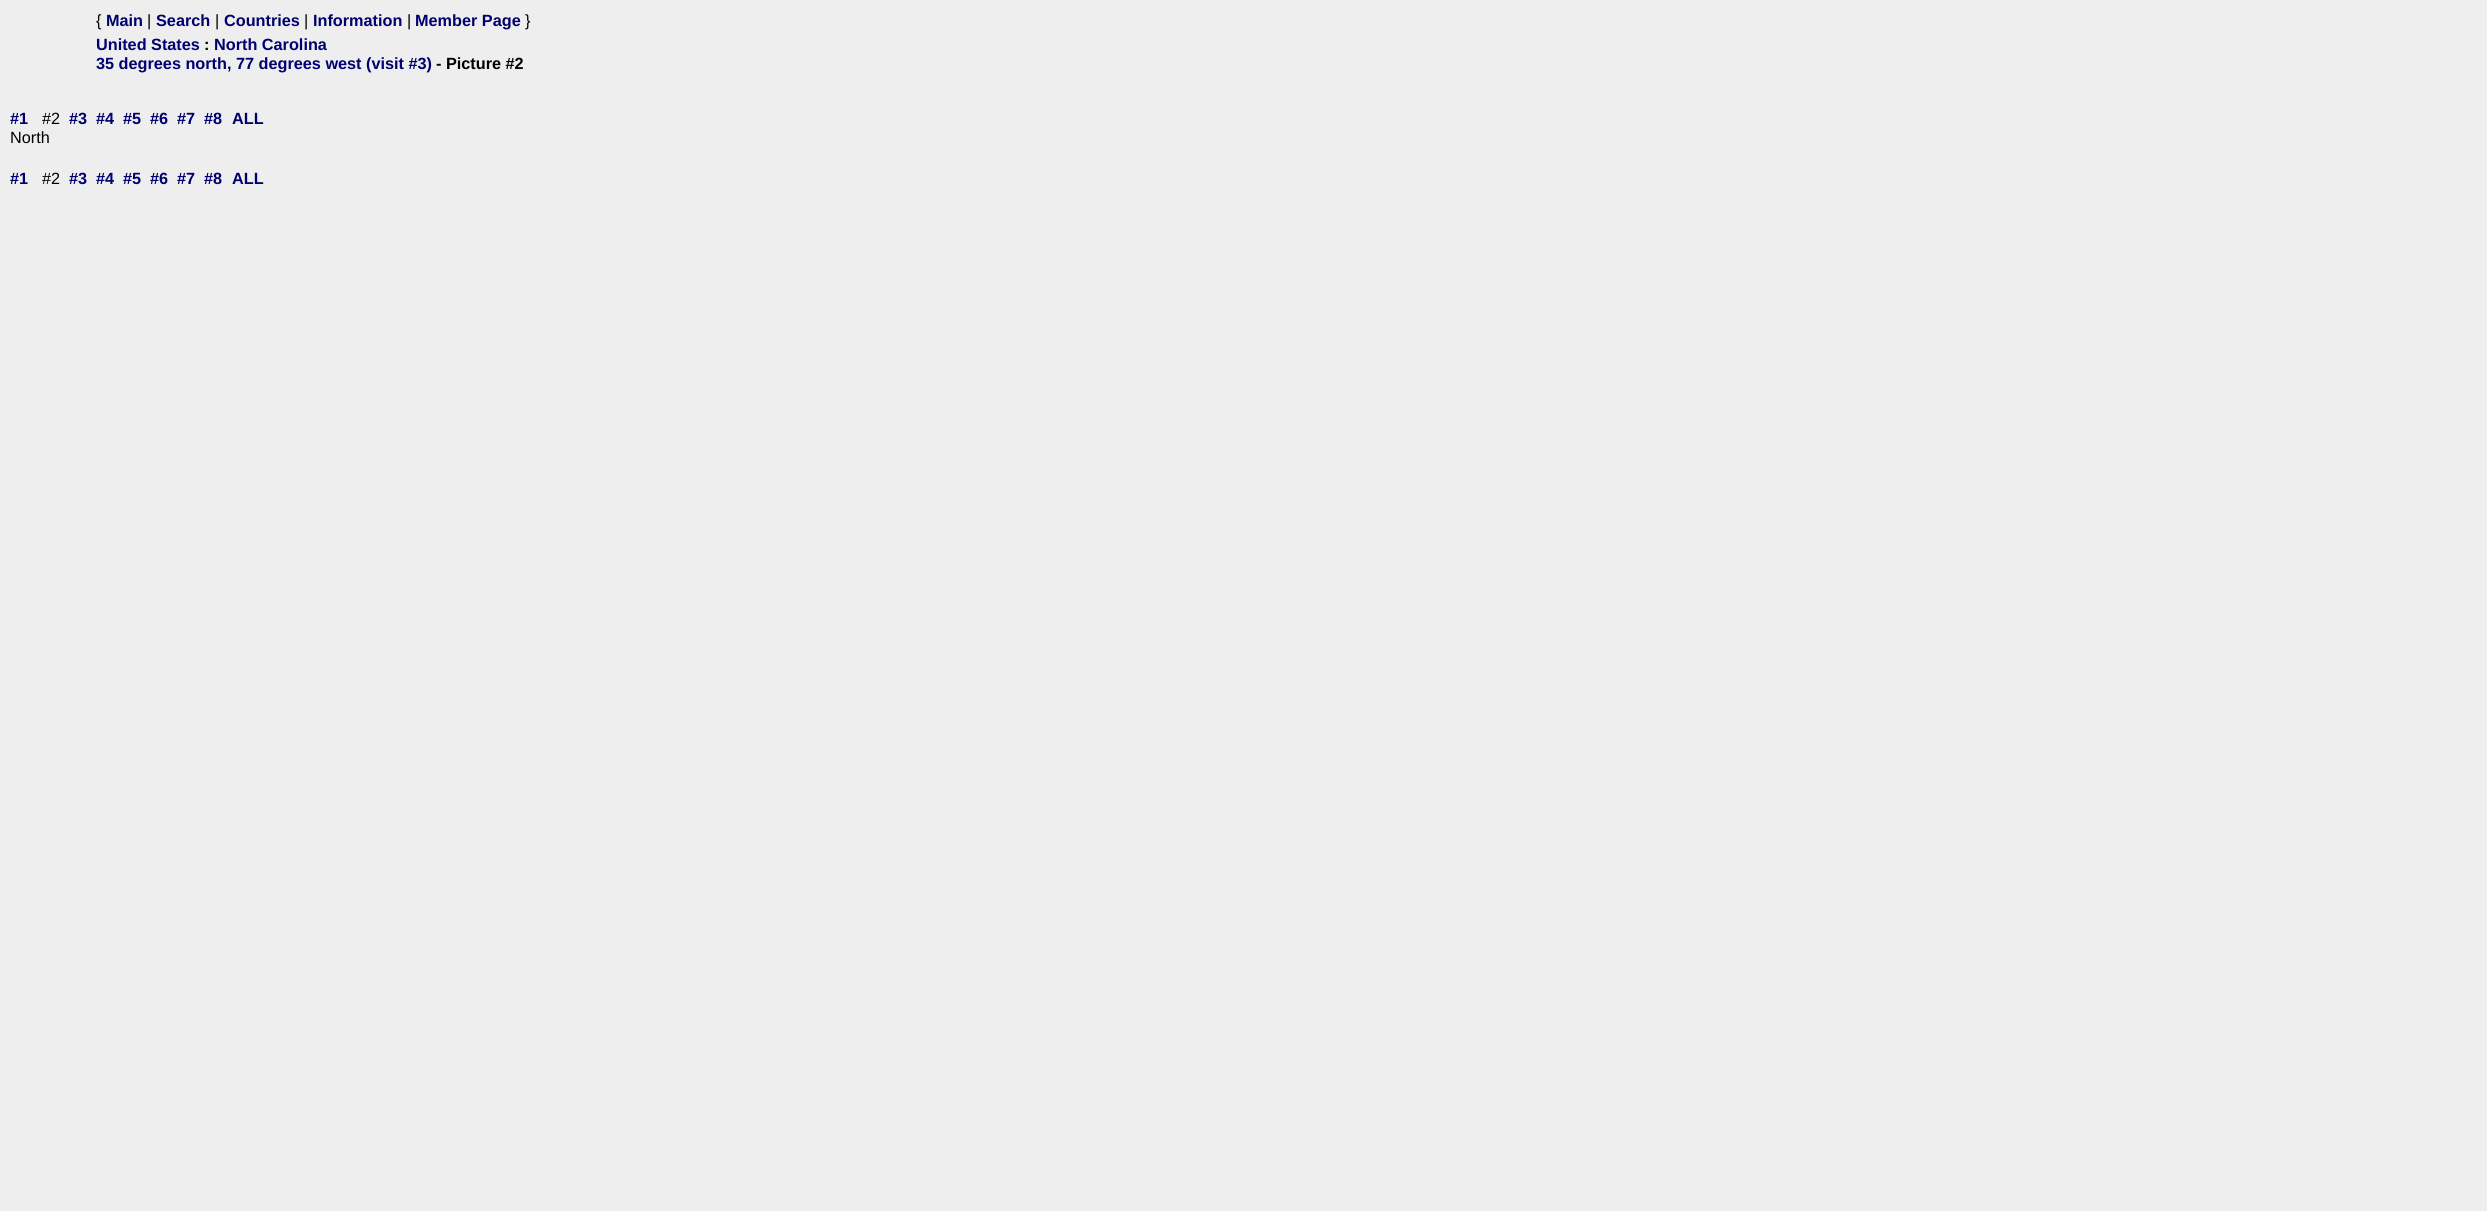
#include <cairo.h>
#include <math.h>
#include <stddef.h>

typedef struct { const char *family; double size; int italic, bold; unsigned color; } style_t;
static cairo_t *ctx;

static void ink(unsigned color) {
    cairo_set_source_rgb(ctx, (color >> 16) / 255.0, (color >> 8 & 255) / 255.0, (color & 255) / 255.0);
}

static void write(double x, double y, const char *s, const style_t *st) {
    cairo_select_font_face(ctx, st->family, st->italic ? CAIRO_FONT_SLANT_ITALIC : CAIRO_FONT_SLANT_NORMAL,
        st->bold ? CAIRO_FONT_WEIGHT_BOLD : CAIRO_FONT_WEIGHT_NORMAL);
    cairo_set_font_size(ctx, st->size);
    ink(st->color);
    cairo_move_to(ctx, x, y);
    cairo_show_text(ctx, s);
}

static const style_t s1 = {"Liberation Sans", 16.25, 0, 0, 0x000000};
static const style_t s2 = {"Liberation Sans", 16.25, 0, 1, 0x000070};
static const style_t s3 = {"Liberation Sans", 16.25, 0, 1, 0x000000};

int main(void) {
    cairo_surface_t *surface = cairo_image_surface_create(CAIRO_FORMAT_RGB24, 2487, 1211);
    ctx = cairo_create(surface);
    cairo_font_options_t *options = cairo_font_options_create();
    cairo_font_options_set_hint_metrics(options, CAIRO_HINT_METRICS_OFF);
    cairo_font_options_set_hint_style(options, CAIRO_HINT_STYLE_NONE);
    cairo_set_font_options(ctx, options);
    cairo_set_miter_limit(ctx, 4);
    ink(0xeeeeee);
    cairo_paint(ctx);
    write(96, 26, "{", &s1);
    write(106, 26, "Main", &s2);
    write(147, 26, "|", &s1);
    write(156, 26, "Search", &s2);
    write(215, 26, "|", &s1);
    write(224, 26, "Countries", &s2);
    write(304, 26, "|", &s1);
    write(313, 26, "Information", &s2);
    write(407, 26, "|", &s1);
    write(415, 26, "Member Page", &s2);
    write(525, 26, "}", &s1);
    write(96, 50, "United States", &s2);
    write(204, 50, ":", &s3);
    write(214, 50, "North Carolina", &s2);
    write(96, 69, "35 degrees north, 77 degrees west (visit #3)", &s2);
    write(436, 69, "- Picture #2", &s3);
    write(10, 124, "#1", &s2);
    write(42, 124, "#2", &s1);
    write(69, 124, "#3", &s2);
    write(96, 124, "#4", &s2);
    write(123, 124, "#5", &s2);
    write(150, 124, "#6", &s2);
    write(177, 124, "#7", &s2);
    write(204, 124, "#8", &s2);
    write(232, 124, "ALL", &s2);
    write(10, 143, "North", &s1);
    write(10, 184, "#1", &s2);
    write(42, 184, "#2", &s1);
    write(69, 184, "#3", &s2);
    write(96, 184, "#4", &s2);
    write(123, 184, "#5", &s2);
    write(150, 184, "#6", &s2);
    write(177, 184, "#7", &s2);
    write(204, 184, "#8", &s2);
    write(232, 184, "ALL", &s2);
    cairo_surface_write_to_png(surface, "screenshot.png");
    cairo_font_options_destroy(options);
    cairo_destroy(ctx);
    cairo_surface_destroy(surface);
    return 0;
}
